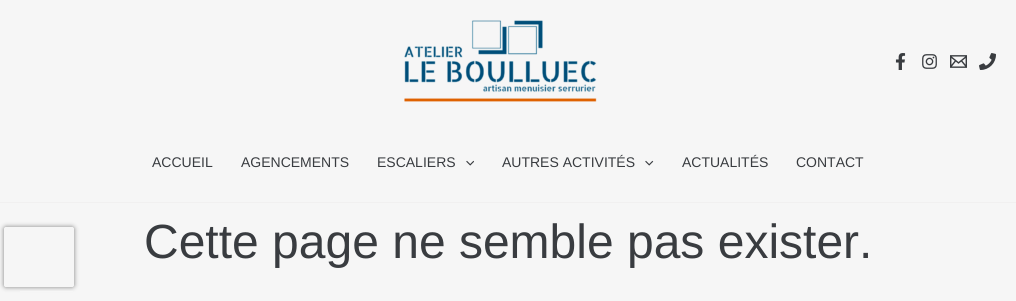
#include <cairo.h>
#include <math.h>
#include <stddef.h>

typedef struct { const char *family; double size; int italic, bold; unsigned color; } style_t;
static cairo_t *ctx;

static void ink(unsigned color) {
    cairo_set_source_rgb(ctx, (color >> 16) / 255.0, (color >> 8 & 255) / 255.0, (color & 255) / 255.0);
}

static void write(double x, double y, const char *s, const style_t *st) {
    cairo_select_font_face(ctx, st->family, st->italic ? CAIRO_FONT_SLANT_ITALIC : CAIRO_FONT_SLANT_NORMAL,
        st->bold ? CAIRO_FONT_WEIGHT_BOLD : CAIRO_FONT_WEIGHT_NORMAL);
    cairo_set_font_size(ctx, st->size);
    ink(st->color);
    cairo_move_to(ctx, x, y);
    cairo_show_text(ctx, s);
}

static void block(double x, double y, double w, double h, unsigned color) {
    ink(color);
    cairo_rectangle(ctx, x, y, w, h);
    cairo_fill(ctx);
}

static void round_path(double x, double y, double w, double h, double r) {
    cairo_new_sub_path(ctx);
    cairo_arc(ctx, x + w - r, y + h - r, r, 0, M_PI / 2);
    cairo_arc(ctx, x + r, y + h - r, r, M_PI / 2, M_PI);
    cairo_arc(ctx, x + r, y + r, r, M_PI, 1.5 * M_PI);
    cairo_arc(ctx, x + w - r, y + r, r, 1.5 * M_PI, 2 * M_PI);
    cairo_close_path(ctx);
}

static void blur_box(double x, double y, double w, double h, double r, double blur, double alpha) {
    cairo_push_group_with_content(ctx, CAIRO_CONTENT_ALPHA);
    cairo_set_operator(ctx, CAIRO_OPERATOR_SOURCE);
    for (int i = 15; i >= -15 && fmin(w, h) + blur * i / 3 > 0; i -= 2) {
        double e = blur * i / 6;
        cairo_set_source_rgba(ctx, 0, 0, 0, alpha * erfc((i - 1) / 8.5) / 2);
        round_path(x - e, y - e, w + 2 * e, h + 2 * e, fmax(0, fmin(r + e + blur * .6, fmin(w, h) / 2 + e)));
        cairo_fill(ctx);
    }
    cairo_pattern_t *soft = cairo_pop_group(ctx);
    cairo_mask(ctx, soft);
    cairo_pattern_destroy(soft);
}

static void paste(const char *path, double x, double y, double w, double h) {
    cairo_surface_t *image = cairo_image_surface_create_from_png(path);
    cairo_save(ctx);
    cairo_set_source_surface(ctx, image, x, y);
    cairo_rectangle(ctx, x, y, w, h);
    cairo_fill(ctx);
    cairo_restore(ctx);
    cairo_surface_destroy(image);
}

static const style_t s1 = {"Liberation Sans", 14, 0, 0, 0x393c40};
static const style_t s2 = {"Liberation Sans", 48, 0, 0, 0x393c40};

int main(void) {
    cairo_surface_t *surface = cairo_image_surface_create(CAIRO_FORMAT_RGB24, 1016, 301);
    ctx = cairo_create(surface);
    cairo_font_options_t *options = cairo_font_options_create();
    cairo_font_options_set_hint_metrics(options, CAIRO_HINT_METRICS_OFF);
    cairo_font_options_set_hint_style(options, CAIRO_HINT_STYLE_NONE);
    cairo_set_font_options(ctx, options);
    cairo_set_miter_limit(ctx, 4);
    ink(0xf6f6f6);
    cairo_paint(ctx);
    cairo_save(ctx);
    cairo_set_fill_rule(ctx, CAIRO_FILL_RULE_EVEN_ODD);
    cairo_new_path(ctx);
    cairo_move_to(ctx, 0, 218);
    cairo_line_to(ctx, 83, 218);
    cairo_line_to(ctx, 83, 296);
    cairo_line_to(ctx, 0, 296);
    cairo_close_path(ctx);
    cairo_move_to(ctx, 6, 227);
    cairo_line_to(ctx, 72, 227);
    cairo_curve_to(ctx, 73, 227, 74, 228, 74, 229);
    cairo_line_to(ctx, 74, 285);
    cairo_curve_to(ctx, 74, 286, 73, 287, 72, 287);
    cairo_line_to(ctx, 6, 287);
    cairo_curve_to(ctx, 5, 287, 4, 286, 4, 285);
    cairo_line_to(ctx, 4, 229);
    cairo_curve_to(ctx, 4, 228, 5, 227, 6, 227);
    cairo_close_path(ctx);
    cairo_clip(ctx);
    ink(0x808080);
    blur_box(4, 227, 70, 60, 2, 2.5, 1);
    cairo_restore(ctx);
    paste("pic1.png", 404, 20, 193, 82);
    paste("pic2.png", 895, 53, 11, 17);
    paste("pic3.png", 922, 54, 15, 15);
    paste("pic4.png", 950, 55, 17, 13);
    paste("pic5.png", 979, 53, 17, 17);
    block(0, 202, 1016, 1, 0xf1f0f0);
    write(152, 167, "ACCUEIL", &s1);
    write(241, 167, "AGENCEMENTS", &s1);
    write(377, 167, "ESCALIERS", &s1);
    paste("pic6.png", 466, 160, 8, 6);
    write(502, 167, "AUTRES ACTIVITÉS", &s1);
    paste("pic7.png", 645, 160, 9, 6);
    write(682, 167, "ACTUALITÉS", &s1);
    write(796, 167, "CONTACT", &s1);
    write(144, 258, "Cette page ne semble pas exister.", &s2);
    block(20, 291, 53, 1, 0xf6f6f6);
    cairo_surface_write_to_png(surface, "screenshot.png");
    cairo_font_options_destroy(options);
    cairo_destroy(ctx);
    cairo_surface_destroy(surface);
    return 0;
}
